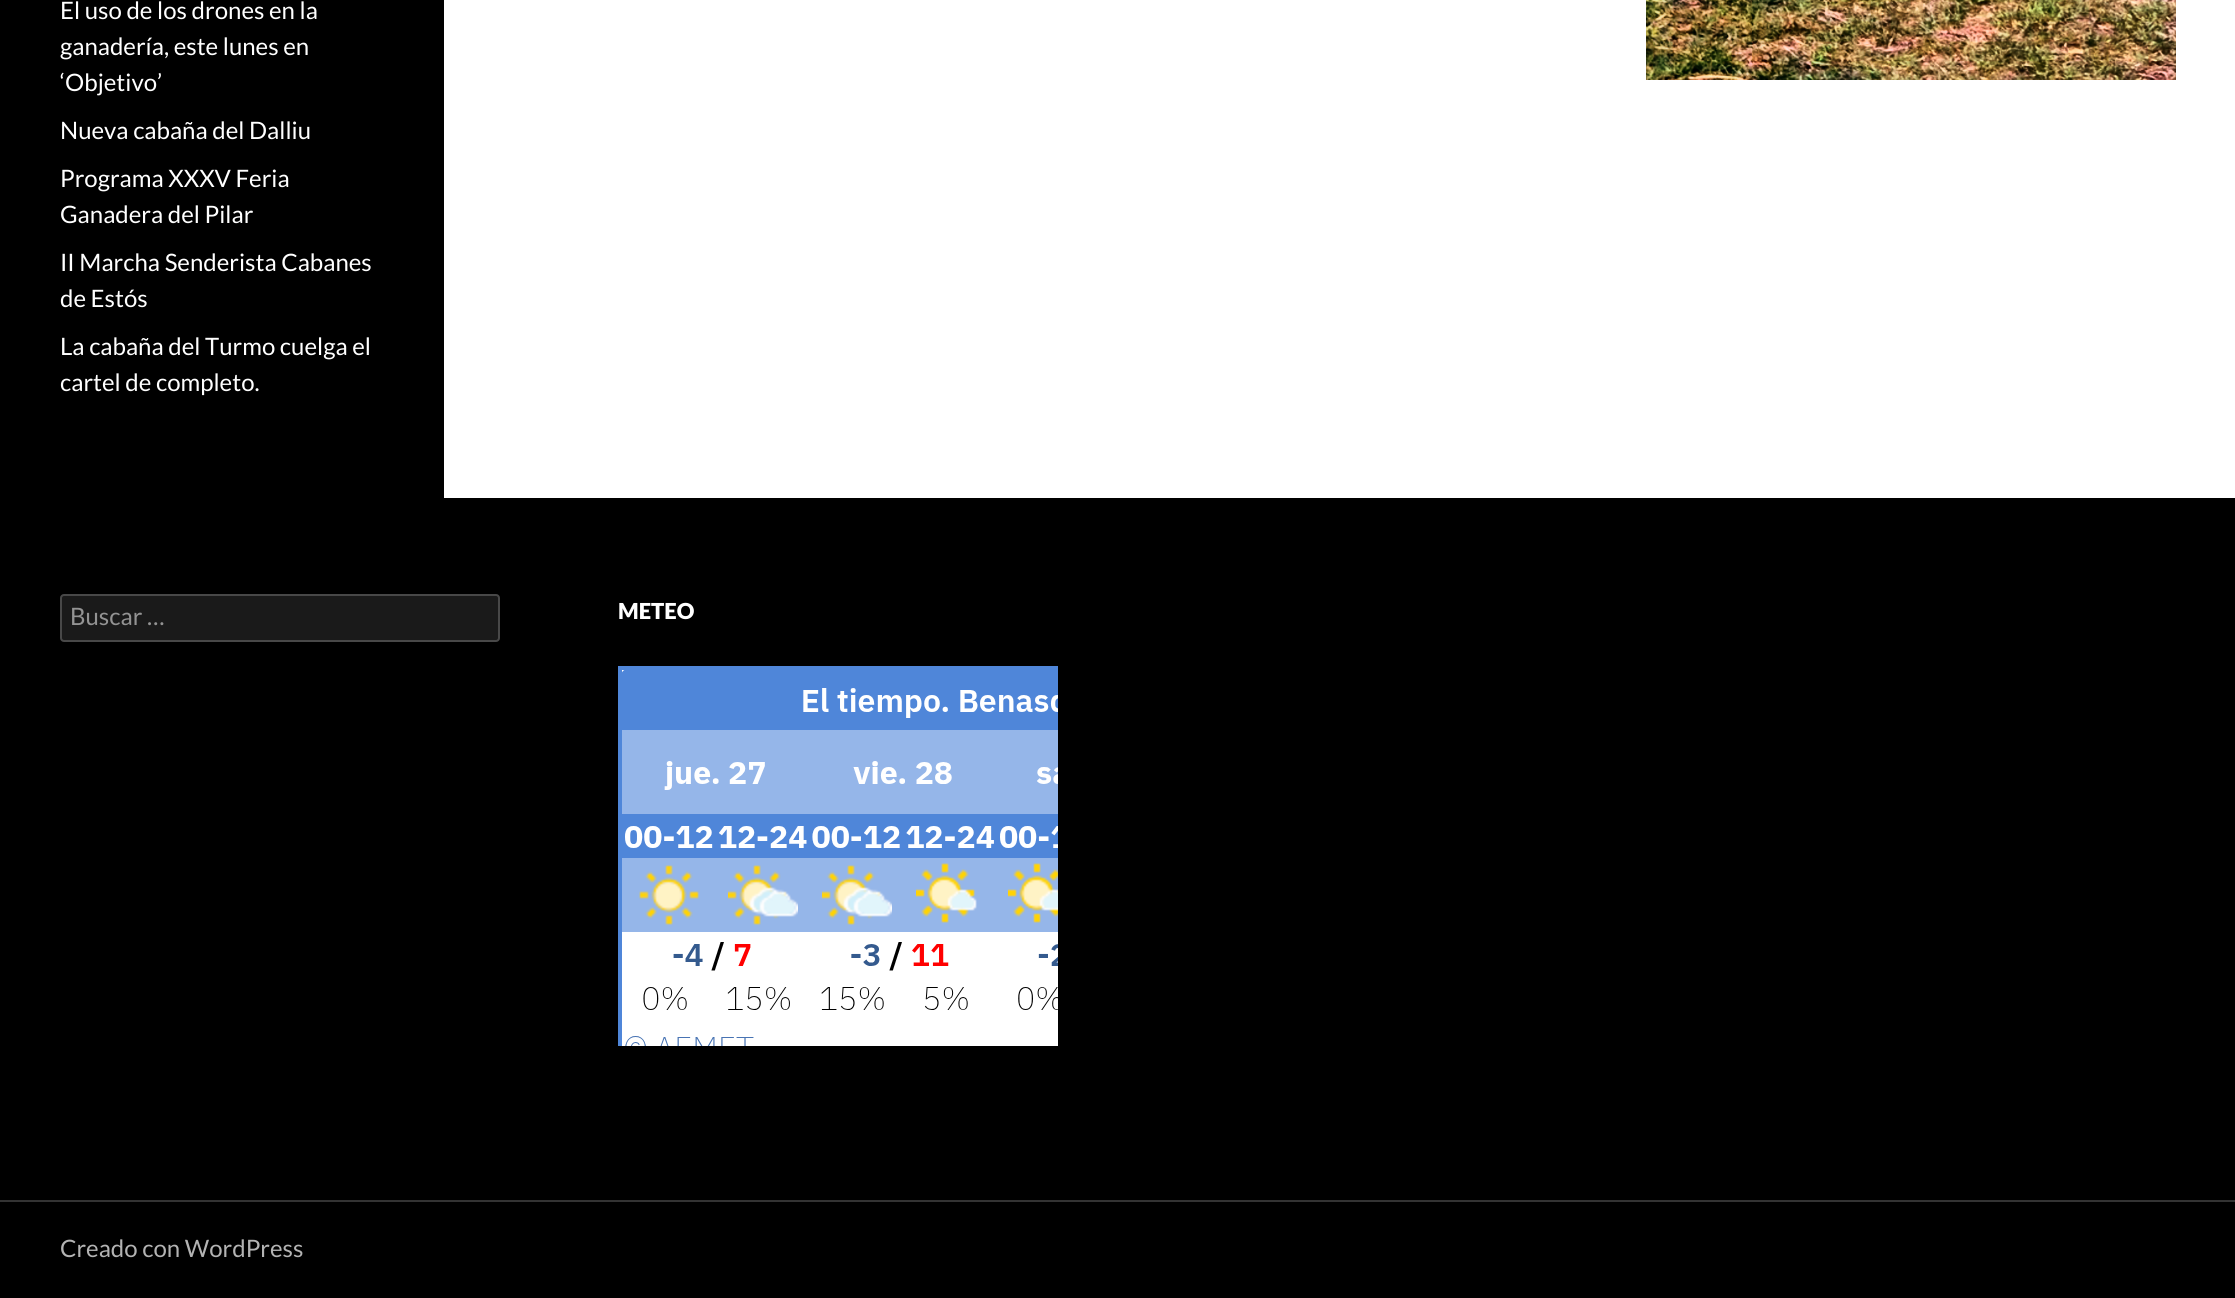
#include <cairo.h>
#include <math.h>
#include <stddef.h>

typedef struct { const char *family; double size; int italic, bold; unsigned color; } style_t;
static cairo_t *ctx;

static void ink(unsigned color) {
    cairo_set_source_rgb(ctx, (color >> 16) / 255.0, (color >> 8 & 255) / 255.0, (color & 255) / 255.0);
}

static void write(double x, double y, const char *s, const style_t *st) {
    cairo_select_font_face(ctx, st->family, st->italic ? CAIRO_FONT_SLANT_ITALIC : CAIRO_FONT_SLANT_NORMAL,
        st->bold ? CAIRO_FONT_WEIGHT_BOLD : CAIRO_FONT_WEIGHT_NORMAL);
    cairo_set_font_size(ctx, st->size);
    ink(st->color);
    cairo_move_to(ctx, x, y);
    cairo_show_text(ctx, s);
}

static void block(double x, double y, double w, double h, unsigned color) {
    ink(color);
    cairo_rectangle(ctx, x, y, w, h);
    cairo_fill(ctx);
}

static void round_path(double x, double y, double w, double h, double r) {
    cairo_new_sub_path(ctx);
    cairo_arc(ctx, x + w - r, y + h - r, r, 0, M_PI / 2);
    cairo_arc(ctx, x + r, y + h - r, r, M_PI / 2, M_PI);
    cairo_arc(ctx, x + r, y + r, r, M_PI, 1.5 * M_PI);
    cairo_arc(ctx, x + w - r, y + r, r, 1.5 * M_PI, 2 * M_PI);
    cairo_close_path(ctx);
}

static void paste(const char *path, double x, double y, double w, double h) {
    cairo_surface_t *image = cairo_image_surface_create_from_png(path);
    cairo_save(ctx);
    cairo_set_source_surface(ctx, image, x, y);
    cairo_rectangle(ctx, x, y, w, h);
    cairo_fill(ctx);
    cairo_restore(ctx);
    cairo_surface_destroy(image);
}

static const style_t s1 = {"Lato", 24, 0, 0, 0xffffff};
static const style_t s2 = {"Lato", 24, 0, 0, 0x939393};
static const style_t s3 = {"Lato Black", 22, 0, 0, 0xffffff};
static const style_t s4 = {"Lato", 24, 0, 0, 0xb3b3b3};

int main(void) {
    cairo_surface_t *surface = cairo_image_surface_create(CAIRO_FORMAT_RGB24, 2235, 1298);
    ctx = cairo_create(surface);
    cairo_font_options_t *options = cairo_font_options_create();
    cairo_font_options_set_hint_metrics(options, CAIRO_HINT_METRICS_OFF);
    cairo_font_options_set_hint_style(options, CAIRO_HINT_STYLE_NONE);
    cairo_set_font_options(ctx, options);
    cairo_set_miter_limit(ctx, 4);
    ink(0xffffff);
    cairo_paint(ctx);
    block(0, 0, 444, 498, 0x000000);
    write(60, 19, "El uso de los drones en la", &s1);
    write(60, 55, "ganadería, este lunes en", &s1);
    write(60, 91, "‘Objetivo’", &s1);
    write(60, 139, "Nueva cabaña del Dalliu", &s1);
    write(60, 187, "Programa XXXV Feria", &s1);
    write(60, 223, "Ganadera del Pilar", &s1);
    write(60, 271, "II Marcha Senderista Cabanes", &s1);
    write(60, 307, "de Estós", &s1);
    write(60, 355, "La cabaña del Turmo cuelga el", &s1);
    write(60, 391, "cartel de completo.", &s1);
    paste("pic1.png", 1646, 0, 530, 80);
    block(0, 498, 2235, 800, 0x000000);
    ink(0x1a1a1a);
    round_path(60, 594, 440, 48, 4);
    cairo_fill(ctx);
    round_path(61, 595, 438, 46, 3);
    cairo_set_source_rgba(ctx, 1, 1, 1, 0.2);
    cairo_stroke(ctx);
    write(70, 625, "Buscar …", &s2);
    write(618, 619, "METEO", &s3);
    paste("pic2.png", 618, 666, 440, 380);
    block(0, 1200, 2235, 2, 0x333333);
    write(60, 1257, "Creado con WordPress", &s4);
    cairo_surface_write_to_png(surface, "screenshot.png");
    cairo_font_options_destroy(options);
    cairo_destroy(ctx);
    cairo_surface_destroy(surface);
    return 0;
}
